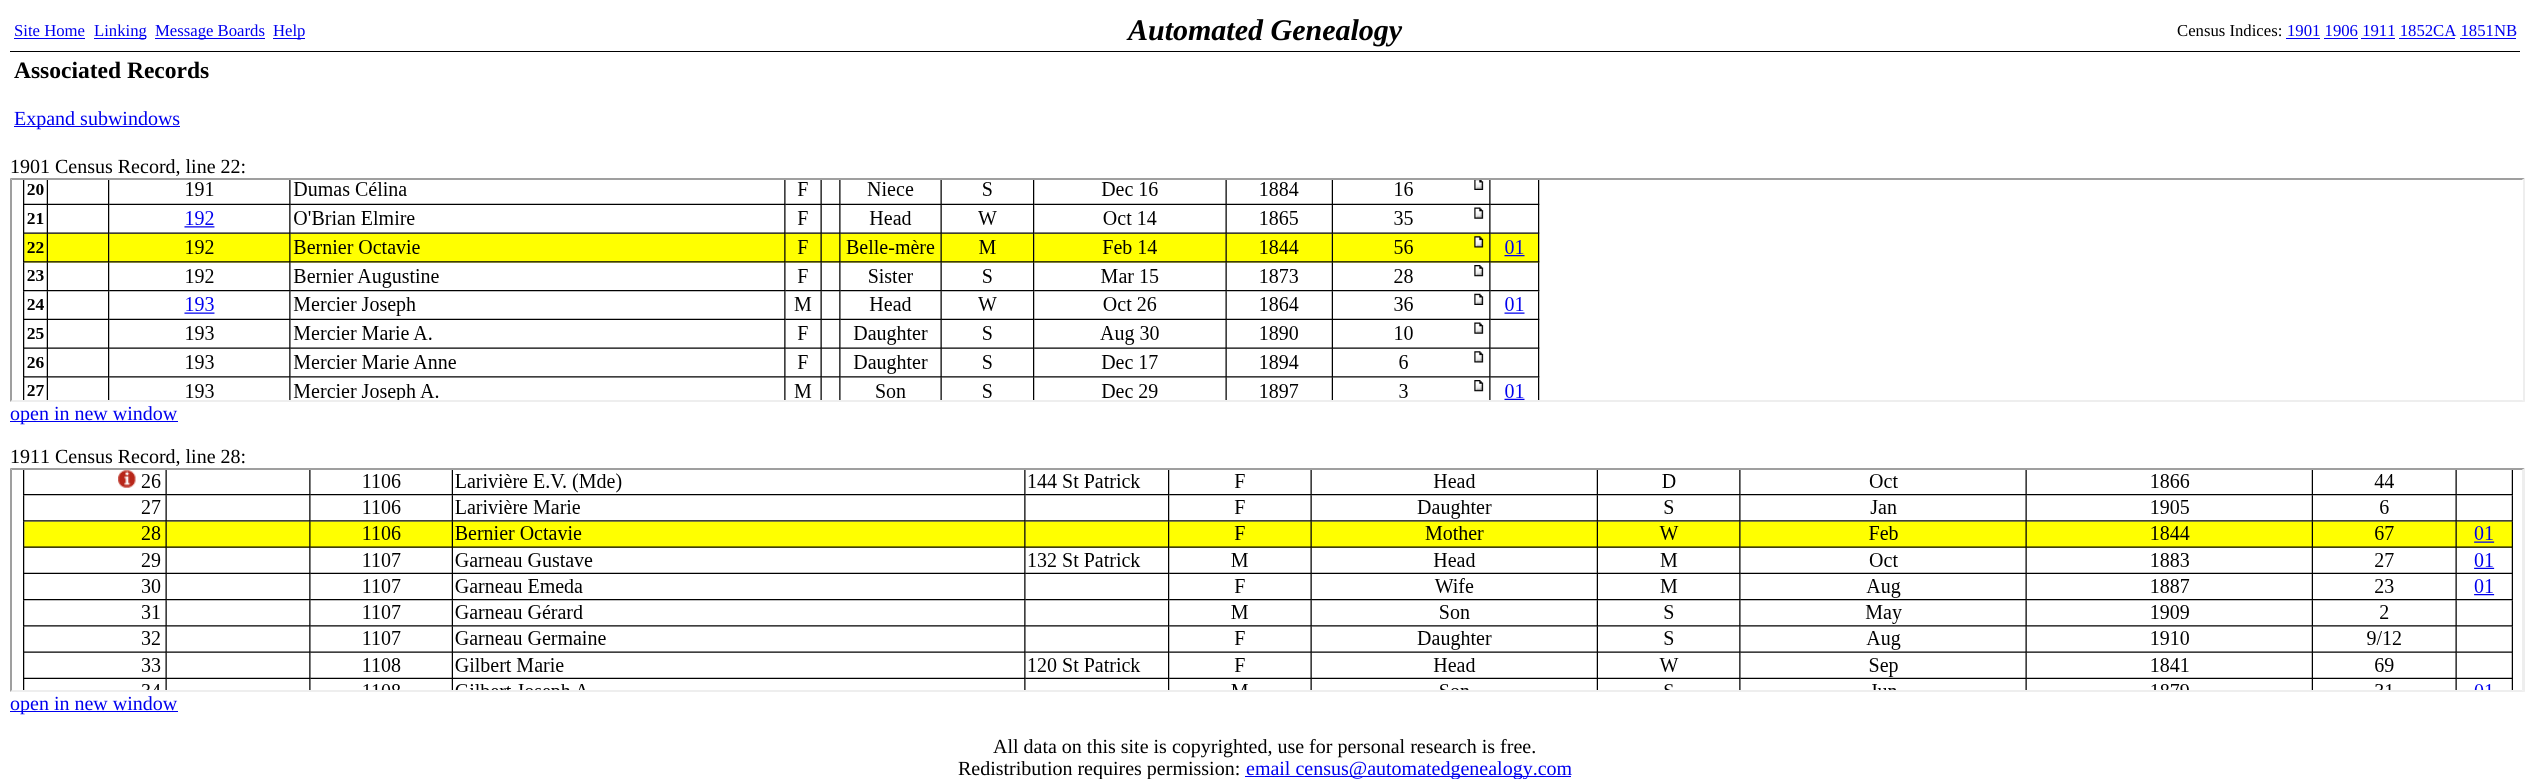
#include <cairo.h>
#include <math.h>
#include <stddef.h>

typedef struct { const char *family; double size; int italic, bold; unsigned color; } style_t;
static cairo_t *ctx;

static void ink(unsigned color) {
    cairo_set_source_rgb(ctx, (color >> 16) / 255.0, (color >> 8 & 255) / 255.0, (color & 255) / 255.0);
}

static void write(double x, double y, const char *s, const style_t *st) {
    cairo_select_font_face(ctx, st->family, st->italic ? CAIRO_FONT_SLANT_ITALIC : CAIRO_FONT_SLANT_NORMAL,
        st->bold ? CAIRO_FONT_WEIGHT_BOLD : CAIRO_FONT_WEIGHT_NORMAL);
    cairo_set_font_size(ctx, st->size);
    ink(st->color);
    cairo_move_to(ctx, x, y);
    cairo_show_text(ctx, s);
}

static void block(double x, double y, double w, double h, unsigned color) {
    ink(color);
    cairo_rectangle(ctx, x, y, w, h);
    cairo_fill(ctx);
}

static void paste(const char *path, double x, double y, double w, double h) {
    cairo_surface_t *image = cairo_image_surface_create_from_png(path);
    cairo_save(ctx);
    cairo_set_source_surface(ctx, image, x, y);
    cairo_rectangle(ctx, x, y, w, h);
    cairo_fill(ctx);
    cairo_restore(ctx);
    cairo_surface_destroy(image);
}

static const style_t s1 = {"Liberation Serif", 16.7, 0, 0, 0x0000ee};
static const style_t s2 = {"Liberation Serif", 30, 1, 1, 0x000000};
static const style_t s3 = {"Liberation Serif", 16.7, 0, 0, 0x000000};
static const style_t s4 = {"Liberation Serif", 23.5, 0, 1, 0x000000};
static const style_t s5 = {"Liberation Serif", 20, 0, 0, 0x0000ee};
static const style_t s6 = {"Liberation Serif", 20, 0, 0, 0x000000};

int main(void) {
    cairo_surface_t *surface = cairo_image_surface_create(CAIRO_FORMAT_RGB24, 2530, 779);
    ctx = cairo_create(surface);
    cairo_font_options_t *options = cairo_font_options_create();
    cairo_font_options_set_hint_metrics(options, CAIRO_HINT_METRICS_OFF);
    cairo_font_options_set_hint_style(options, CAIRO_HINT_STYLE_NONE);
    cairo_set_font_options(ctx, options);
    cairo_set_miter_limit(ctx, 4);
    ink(0xffffff);
    cairo_paint(ctx);
    block(10, 51, 2510, 1, 0x000000);
    write(14, 36, "Site Home", &s1);
    block(14, 38, 71, 1, 0x0000ee);
    block(94, 38, 52, 1, 0x0000ee);
    write(94, 36, "Linking", &s1);
    block(155, 38, 110, 1, 0x0000ee);
    write(155, 36, "Message Boards", &s1);
    block(273, 38, 32, 1, 0x0000ee);
    write(273, 36, "Help", &s1);
    write(1128, 40, "Automated Genealogy", &s2);
    write(2177, 36, "Census Indices:", &s3);
    write(2287, 36, "1901 1906 1911 1852CA 1851NB", &s1);
    block(2286, 38, 34, 1, 0x0000ee);
    block(2324, 38, 34, 1, 0x0000ee);
    block(2361, 38, 34, 1, 0x0000ee);
    block(2399, 38, 56, 1, 0x0000ee);
    block(2460, 38, 56, 1, 0x0000ee);
    write(14, 78, "Associated Records", &s4);
    block(14, 126, 166, 1, 0x0000ee);
    write(14, 125, "Expand subwindows", &s5);
    write(10, 173, "1901 Census Record, line 22:", &s6);
    ink(0x9f9f9f);
    cairo_new_path(ctx);
    cairo_move_to(ctx, 10, 178);
    cairo_line_to(ctx, 2525, 178);
    cairo_line_to(ctx, 2522, 180);
    cairo_line_to(ctx, 12, 180);
    cairo_close_path(ctx);
    cairo_fill(ctx);
    ink(0xeeeeee);
    cairo_new_path(ctx);
    cairo_move_to(ctx, 2525, 178);
    cairo_line_to(ctx, 2525, 402);
    cairo_line_to(ctx, 2522, 400);
    cairo_line_to(ctx, 2522, 180);
    cairo_close_path(ctx);
    cairo_fill(ctx);
    cairo_new_path(ctx);
    cairo_move_to(ctx, 2525, 402);
    cairo_line_to(ctx, 10, 402);
    cairo_line_to(ctx, 12, 400);
    cairo_line_to(ctx, 2522, 400);
    cairo_close_path(ctx);
    cairo_fill(ctx);
    ink(0x9f9f9f);
    cairo_new_path(ctx);
    cairo_move_to(ctx, 10, 402);
    cairo_line_to(ctx, 10, 178);
    cairo_line_to(ctx, 12, 180);
    cairo_line_to(ctx, 12, 400);
    cairo_close_path(ctx);
    cairo_fill(ctx);
    paste("pic1.png", 23, 180, 2500, 220);
    block(10, 421, 168, 1, 0x0000ee);
    write(10, 420, "open in new window", &s5);
    write(10, 463, "1911 Census Record, line 28:", &s6);
    ink(0x9f9f9f);
    cairo_new_path(ctx);
    cairo_move_to(ctx, 10, 468);
    cairo_line_to(ctx, 2525, 468);
    cairo_line_to(ctx, 2522, 470);
    cairo_line_to(ctx, 12, 470);
    cairo_close_path(ctx);
    cairo_fill(ctx);
    ink(0xeeeeee);
    cairo_new_path(ctx);
    cairo_move_to(ctx, 2525, 468);
    cairo_line_to(ctx, 2525, 692);
    cairo_line_to(ctx, 2522, 690);
    cairo_line_to(ctx, 2522, 470);
    cairo_close_path(ctx);
    cairo_fill(ctx);
    cairo_new_path(ctx);
    cairo_move_to(ctx, 2525, 692);
    cairo_line_to(ctx, 10, 692);
    cairo_line_to(ctx, 12, 690);
    cairo_line_to(ctx, 2522, 690);
    cairo_close_path(ctx);
    cairo_fill(ctx);
    ink(0x9f9f9f);
    cairo_new_path(ctx);
    cairo_move_to(ctx, 10, 692);
    cairo_line_to(ctx, 10, 468);
    cairo_line_to(ctx, 12, 470);
    cairo_line_to(ctx, 12, 690);
    cairo_close_path(ctx);
    cairo_fill(ctx);
    paste("pic2.png", 23, 470, 2490, 220);
    block(10, 711, 168, 1, 0x0000ee);
    write(10, 710, "open in new window", &s5);
    write(993, 753, "All data on this site is copyrighted, use for personal research is free.", &s6);
    write(958, 775, "Redistribution requires permission:", &s6);
    block(1245, 776, 326, 1, 0x0000ee);
    write(1246, 775, "email census@automatedgenealogy.com", &s5);
    cairo_surface_write_to_png(surface, "screenshot.png");
    cairo_font_options_destroy(options);
    cairo_destroy(ctx);
    cairo_surface_destroy(surface);
    return 0;
}
